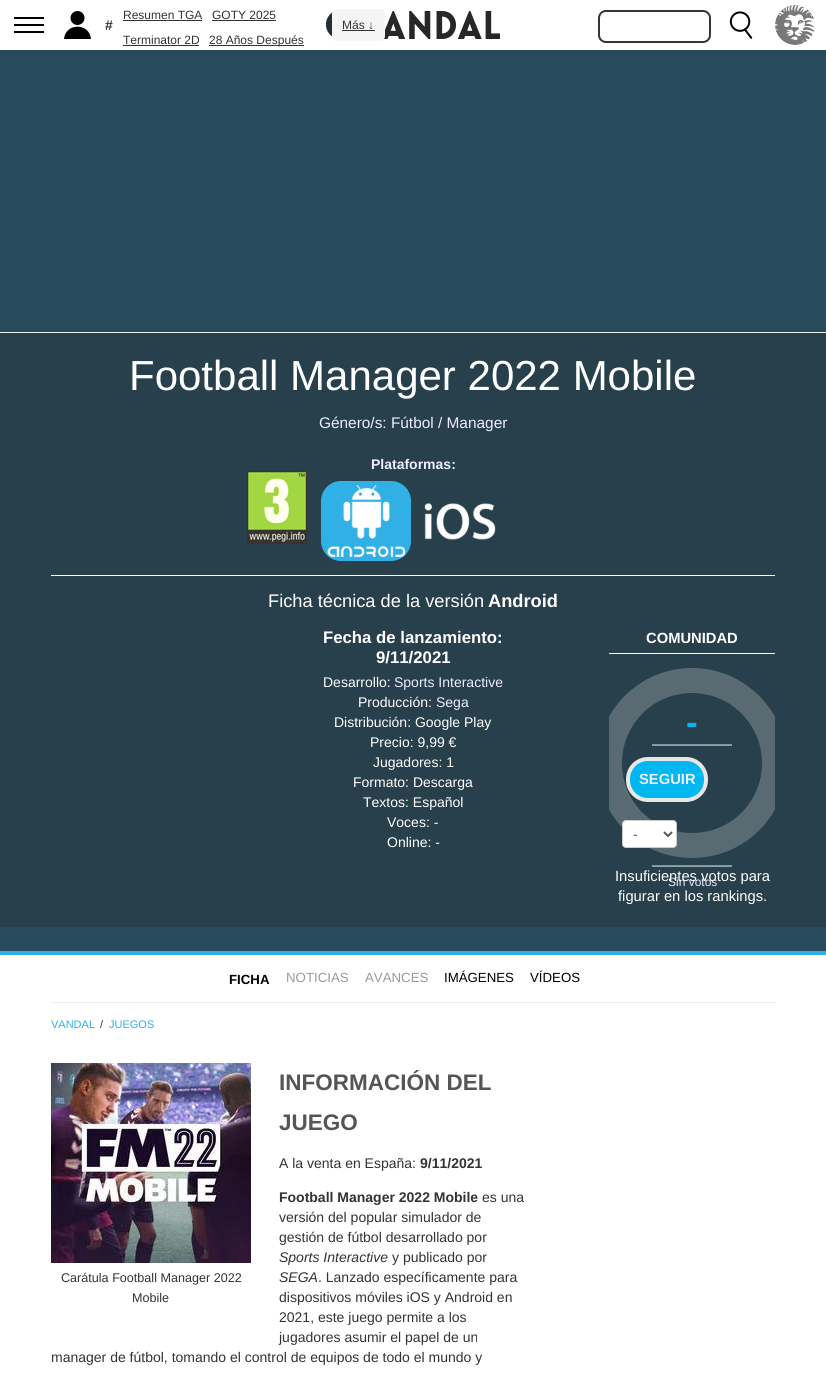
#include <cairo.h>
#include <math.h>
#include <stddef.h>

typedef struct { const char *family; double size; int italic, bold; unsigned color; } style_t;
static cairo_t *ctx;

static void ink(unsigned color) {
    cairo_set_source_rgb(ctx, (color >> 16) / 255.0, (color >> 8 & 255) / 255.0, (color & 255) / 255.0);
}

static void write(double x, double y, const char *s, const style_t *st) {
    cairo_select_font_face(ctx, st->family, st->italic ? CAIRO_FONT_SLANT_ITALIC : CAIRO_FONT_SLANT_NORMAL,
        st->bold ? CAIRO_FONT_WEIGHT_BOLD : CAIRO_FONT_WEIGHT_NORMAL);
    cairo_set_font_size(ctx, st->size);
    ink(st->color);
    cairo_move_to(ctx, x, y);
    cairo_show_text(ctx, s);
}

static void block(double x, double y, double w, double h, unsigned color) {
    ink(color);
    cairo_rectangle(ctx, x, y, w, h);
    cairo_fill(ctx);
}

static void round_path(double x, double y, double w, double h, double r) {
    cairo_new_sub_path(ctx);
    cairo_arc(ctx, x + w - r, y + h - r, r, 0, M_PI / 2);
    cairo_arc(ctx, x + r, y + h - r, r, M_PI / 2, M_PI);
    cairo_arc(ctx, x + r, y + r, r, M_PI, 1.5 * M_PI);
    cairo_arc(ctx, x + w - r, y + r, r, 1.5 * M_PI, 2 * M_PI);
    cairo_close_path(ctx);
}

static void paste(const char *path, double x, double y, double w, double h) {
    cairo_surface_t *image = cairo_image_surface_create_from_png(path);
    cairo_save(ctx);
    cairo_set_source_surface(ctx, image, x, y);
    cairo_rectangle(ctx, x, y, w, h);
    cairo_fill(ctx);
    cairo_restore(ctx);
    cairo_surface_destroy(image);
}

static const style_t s1 = {"Liberation Sans", 12, 0, 0, 0x333333};
static const style_t s2 = {"Liberation Sans", 14, 0, 1, 0x333333};
static const style_t s3 = {"Liberation Sans", 42, 0, 0, 0xffffff};
static const style_t s4 = {"Liberation Sans", 15.4, 0, 0, 0xeeeeff};
static const style_t s5 = {"Liberation Sans", 14, 0, 1, 0xeeeeff};
static const style_t s6 = {"Liberation Sans", 18.25, 0, 0, 0xffffff};
static const style_t s7 = {"Liberation Sans", 18.25, 0, 1, 0xffffff};
static const style_t s8 = {"Liberation Sans", 16.75, 0, 1, 0xffffff};
static const style_t s9 = {"Liberation Sans", 14, 0, 0, 0xffffff};
static const style_t s10 = {"Liberation Sans", 14, 0, 0, 0xeeeeff};
static const style_t s11 = {"Liberation Sans", 14.75, 0, 1, 0xffffff};
static const style_t s12 = {"Liberation Sans", 35, 0, 1, 0x00b7ef};
static const style_t s13 = {"Liberation Sans", 14.75, 0, 1, 0xeeeeff};
static const style_t s14 = {"Liberation Sans", 14, 0, 0, 0x555555};
static const style_t s15 = {"Liberation Sans", 14.75, 0, 0, 0xffffff};
static const style_t s16 = {"Liberation Sans", 12, 0, 0, 0xeeeeff};
static const style_t s17 = {"Liberation Sans", 13.25, 0, 1, 0x000000};
static const style_t s18 = {"Liberation Sans", 13.25, 0, 0, 0x999999};
static const style_t s19 = {"Liberation Sans", 13.25, 0, 0, 0x000000};
static const style_t s20 = {"Liberation Sans", 11, 0, 0, 0x30b0e5};
static const style_t s21 = {"Liberation Sans", 11, 0, 0, 0x333333};
static const style_t s22 = {"Liberation Sans", 22.5, 0, 1, 0x555555};
static const style_t s23 = {"Liberation Sans", 14, 0, 0, 0x333333};
static const style_t s24 = {"Liberation Sans", 14, 1, 0, 0x333333};
static const style_t s25 = {"Liberation Sans", 12.6, 0, 0, 0x333333};

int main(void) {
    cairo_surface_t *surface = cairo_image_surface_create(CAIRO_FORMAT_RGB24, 826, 1373);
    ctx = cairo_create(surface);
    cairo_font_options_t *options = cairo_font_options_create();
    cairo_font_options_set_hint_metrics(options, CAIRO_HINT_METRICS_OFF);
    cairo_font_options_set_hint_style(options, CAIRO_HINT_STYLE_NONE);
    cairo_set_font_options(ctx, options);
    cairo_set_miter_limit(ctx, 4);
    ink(0x284b5b);
    cairo_paint(ctx);
    block(0, 0, 826, 50, 0xffffff);
    block(14, 17, 30, 2, 0x000000);
    block(14, 24, 30, 2, 0x000000);
    block(14, 31, 30, 2, 0x000000);
    cairo_arc(ctx, 77.5, 18, 7, 0, 2 * M_PI);
    cairo_fill(ctx);
    cairo_new_path(ctx);
    cairo_move_to(ctx, 91, 39);
    cairo_curve_to(ctx, 89.5, 22.5, 65.5, 22.5, 64, 39);
    cairo_close_path(ctx);
    cairo_fill(ctx);
    paste("pic1.png", 326, 11, 174, 28);
    round_path(599, 11, 111, 31, 7);
    ink(0x353535);
    cairo_stroke(ctx);
    paste("pic2.png", 729, 11, 24, 28);
    paste("pic3.png", 775, 5, 40, 40);
    write(123, 19, "Resumen TGA", &s1);
    block(123, 20, 79, 1, 0x333333);
    write(212, 19, "GOTY 2025", &s1);
    block(212, 20, 64, 1, 0x333333);
    write(105, 30, "#", &s2);
    write(123, 44, "Terminator 2D", &s1);
    block(123, 45, 76, 1, 0x333333);
    block(209, 45, 95, 1, 0x333333);
    write(209, 44, "28 Años Después", &s1);
    ink(0xf5f5f5);
    round_path(332, 9, 53, 32, 5);
    cairo_fill(ctx);
    write(342, 29, "Más ↓", &s1);
    block(342, 30, 33, 1, 0x333333);
    block(0, 332, 826, 1, 0xeeeeee);
    block(0, 951, 826, 4, 0x30b0e5);
    block(0, 333, 826, 594, 0x27404b);
    write(129, 390, "Football Manager 2022 Mobile", &s3);
    write(319, 428, "Género/s: Fútbol / Manager", &s4);
    write(371, 469, "Plataformas:", &s5);
    ink(0x30b0e5);
    round_path(321, 481, 90, 80, 20);
    cairo_fill(ctx);
    paste("pic4.png", 327, 485, 79, 72);
    paste("pic5.png", 424, 503, 72, 37);
    paste("pic6.png", 247, 471, 60, 73);
    block(51, 575, 724, 1, 0xffffff);
    write(268, 607, "Ficha técnica de la versión", &s6);
    write(488, 607, "Android", &s7);
    write(323, 643, "Fecha de lanzamiento:", &s8);
    write(376, 663, "9/11/2021", &s8);
    write(323, 687, "Desarrollo:", &s9);
    write(394, 687, "Sports Interactive", &s10);
    write(358, 707, "Producción:", &s9);
    write(436, 707, "Sega", &s10);
    write(334, 727, "Distribución: Google Play", &s9);
    write(370, 747, "Precio: 9,99 €", &s9);
    write(373, 767, "Jugadores: 1", &s9);
    write(353, 787, "Formato: Descarga", &s9);
    write(363, 807, "Textos: Español", &s9);
    write(387, 827, "Voces: -", &s9);
    write(387, 847, "Online: -", &s9);
    write(646, 643, "COMUNIDAD", &s11);
    block(609, 653, 166, 1, 0xffffff);
    cairo_save(ctx);
    cairo_rectangle(ctx, 609, 654, 166, 259);
    cairo_clip(ctx);
    cairo_new_path(ctx);
    cairo_move_to(ctx, 787, 668);
    cairo_line_to(ctx, 787, 763);
    cairo_line_to(ctx, 692, 763);
    cairo_line_to(ctx, 692, 668);
    cairo_close_path(ctx);
    cairo_clip(ctx);
    cairo_new_path(ctx);
    cairo_move_to(ctx, 774.5, 763);
    cairo_curve_to(ctx, 774.5, 809, 737.5, 845.5, 692, 845.5);
    cairo_curve_to(ctx, 646.5, 845.5, 609.5, 809, 609.5, 763);
    cairo_curve_to(ctx, 609.5, 717.5, 646.5, 680.5, 692, 680.5);
    cairo_curve_to(ctx, 737.5, 680.5, 774.5, 717.5, 774.5, 763);
    cairo_close_path(ctx);
    ink(0x596a72);
    cairo_set_line_width(ctx, 25);
    cairo_stroke(ctx);
    cairo_restore(ctx);
    cairo_save(ctx);
    cairo_rectangle(ctx, 609, 654, 166, 259);
    cairo_clip(ctx);
    cairo_new_path(ctx);
    cairo_move_to(ctx, 597, 858);
    cairo_line_to(ctx, 597, 763);
    cairo_line_to(ctx, 692, 763);
    cairo_line_to(ctx, 692, 858);
    cairo_close_path(ctx);
    cairo_clip(ctx);
    cairo_new_path(ctx);
    cairo_move_to(ctx, 609.5, 763);
    cairo_curve_to(ctx, 609.5, 717.5, 646.5, 680.5, 692, 680.5);
    cairo_curve_to(ctx, 737.5, 680.5, 774.5, 717.5, 774.5, 763);
    cairo_curve_to(ctx, 774.5, 809, 737.5, 845.5, 692, 845.5);
    cairo_curve_to(ctx, 646.5, 845.5, 609.5, 809, 609.5, 763);
    cairo_close_path(ctx);
    ink(0x596a72);
    cairo_set_line_width(ctx, 25);
    cairo_stroke(ctx);
    cairo_restore(ctx);
    cairo_save(ctx);
    cairo_rectangle(ctx, 692, 763, 83, 95);
    cairo_clip(ctx);
    cairo_new_path(ctx);
    cairo_move_to(ctx, 692, 845.5);
    cairo_curve_to(ctx, 646.5, 845.5, 609.5, 809, 609.5, 763);
    cairo_curve_to(ctx, 609.5, 717.5, 646.5, 680.5, 692, 680.5);
    cairo_curve_to(ctx, 737.5, 680.5, 774.5, 717.5, 774.5, 763);
    cairo_curve_to(ctx, 774.5, 809, 737.5, 845.5, 692, 845.5);
    cairo_close_path(ctx);
    cairo_set_source_rgba(ctx, 0.8, 0.8, 0.8, 0.3);
    cairo_set_line_width(ctx, 25);
    cairo_stroke(ctx);
    cairo_restore(ctx);
    cairo_save(ctx);
    cairo_rectangle(ctx, 609, 668, 83, 95);
    cairo_clip(ctx);
    cairo_arc(ctx, 692, 763, 82.5, 0, 2 * M_PI);
    ink(0x596a72);
    cairo_set_line_width(ctx, 25);
    cairo_stroke(ctx);
    cairo_restore(ctx);
    write(686, 734, "-", &s12);
    block(652, 744, 80, 1, 0x879499);
    block(652, 745, 80, 1, 0x93a0a5);
    ink(0x00b7ef);
    round_path(628, 759, 78, 41, 20);
    cairo_fill_preserve(ctx);
    ink(0xe7e7e7);
    cairo_set_line_width(ctx, 4);
    cairo_stroke(ctx);
    write(639, 784, "SEGUIR", &s13);
    ink(0xffffff);
    round_path(622.5, 820.5, 54, 27, 3.5);
    cairo_fill_preserve(ctx);
    ink(0xcccccc);
    cairo_set_line_width(ctx, 1);
    cairo_stroke(ctx);
    cairo_new_path(ctx);
    cairo_move_to(ctx, 664, 832);
    cairo_line_to(ctx, 668, 836);
    cairo_line_to(ctx, 672, 832);
    ink(0x555555);
    cairo_set_line_width(ctx, 2);
    cairo_stroke(ctx);
    write(633, 839, "-", &s14);
    block(652, 865, 80, 1, 0x879499);
    block(652, 866, 80, 1, 0x93a0a5);
    write(615, 881, "Insuficientes votos para", &s15);
    write(668, 886, "Sin votos", &s16);
    write(618, 901, "figurar en los rankings.", &s15);
    block(0, 955, 826, 418, 0xffffff);
    block(51, 1002, 724, 1, 0xefefef);
    write(229, 984, "FICHA", &s17);
    write(286, 982, "NOTICIAS", &s18);
    write(365, 982, "AVANCES", &s18);
    write(444, 982, "IMÁGENES", &s19);
    write(530, 982, "VÍDEOS", &s19);
    write(51, 1028, "VANDAL", &s20);
    write(100, 1028, "/", &s21);
    write(109, 1028, "JUEGOS", &s20);
    write(279, 1090, "INFORMACIÓN DEL", &s22);
    write(279, 1130, "JUEGO", &s22);
    write(279, 1168, "A la venta en España:", &s23);
    write(420, 1168, "9/11/2021", &s2);
    write(279, 1202, "Football Manager 2022 Mobile", &s2);
    write(482, 1202, "es una", &s23);
    write(279, 1222, "versión del popular simulador de", &s23);
    write(279, 1242, "gestión de fútbol desarrollado por", &s23);
    write(279, 1262, "Sports Interactive", &s24);
    write(392, 1262, "y publicado por", &s23);
    write(279, 1282, "SEGA", &s24);
    write(318, 1282, ". Lanzado específicamente para", &s23);
    write(279, 1302, "dispositivos móviles iOS y Android en", &s23);
    write(279, 1322, "2021, este juego permite a los", &s23);
    write(279, 1342, "jugadores asumir el papel de un", &s23);
    write(51, 1362, "manager de fútbol, tomando el control de equipos de todo el mundo y", &s23);
    paste("pic7.png", 51, 1063, 200, 200);
    write(61, 1282, "Carátula Football Manager 2022", &s25);
    write(132, 1302, "Mobile", &s25);
    cairo_surface_write_to_png(surface, "screenshot.png");
    cairo_font_options_destroy(options);
    cairo_destroy(ctx);
    cairo_surface_destroy(surface);
    return 0;
}
